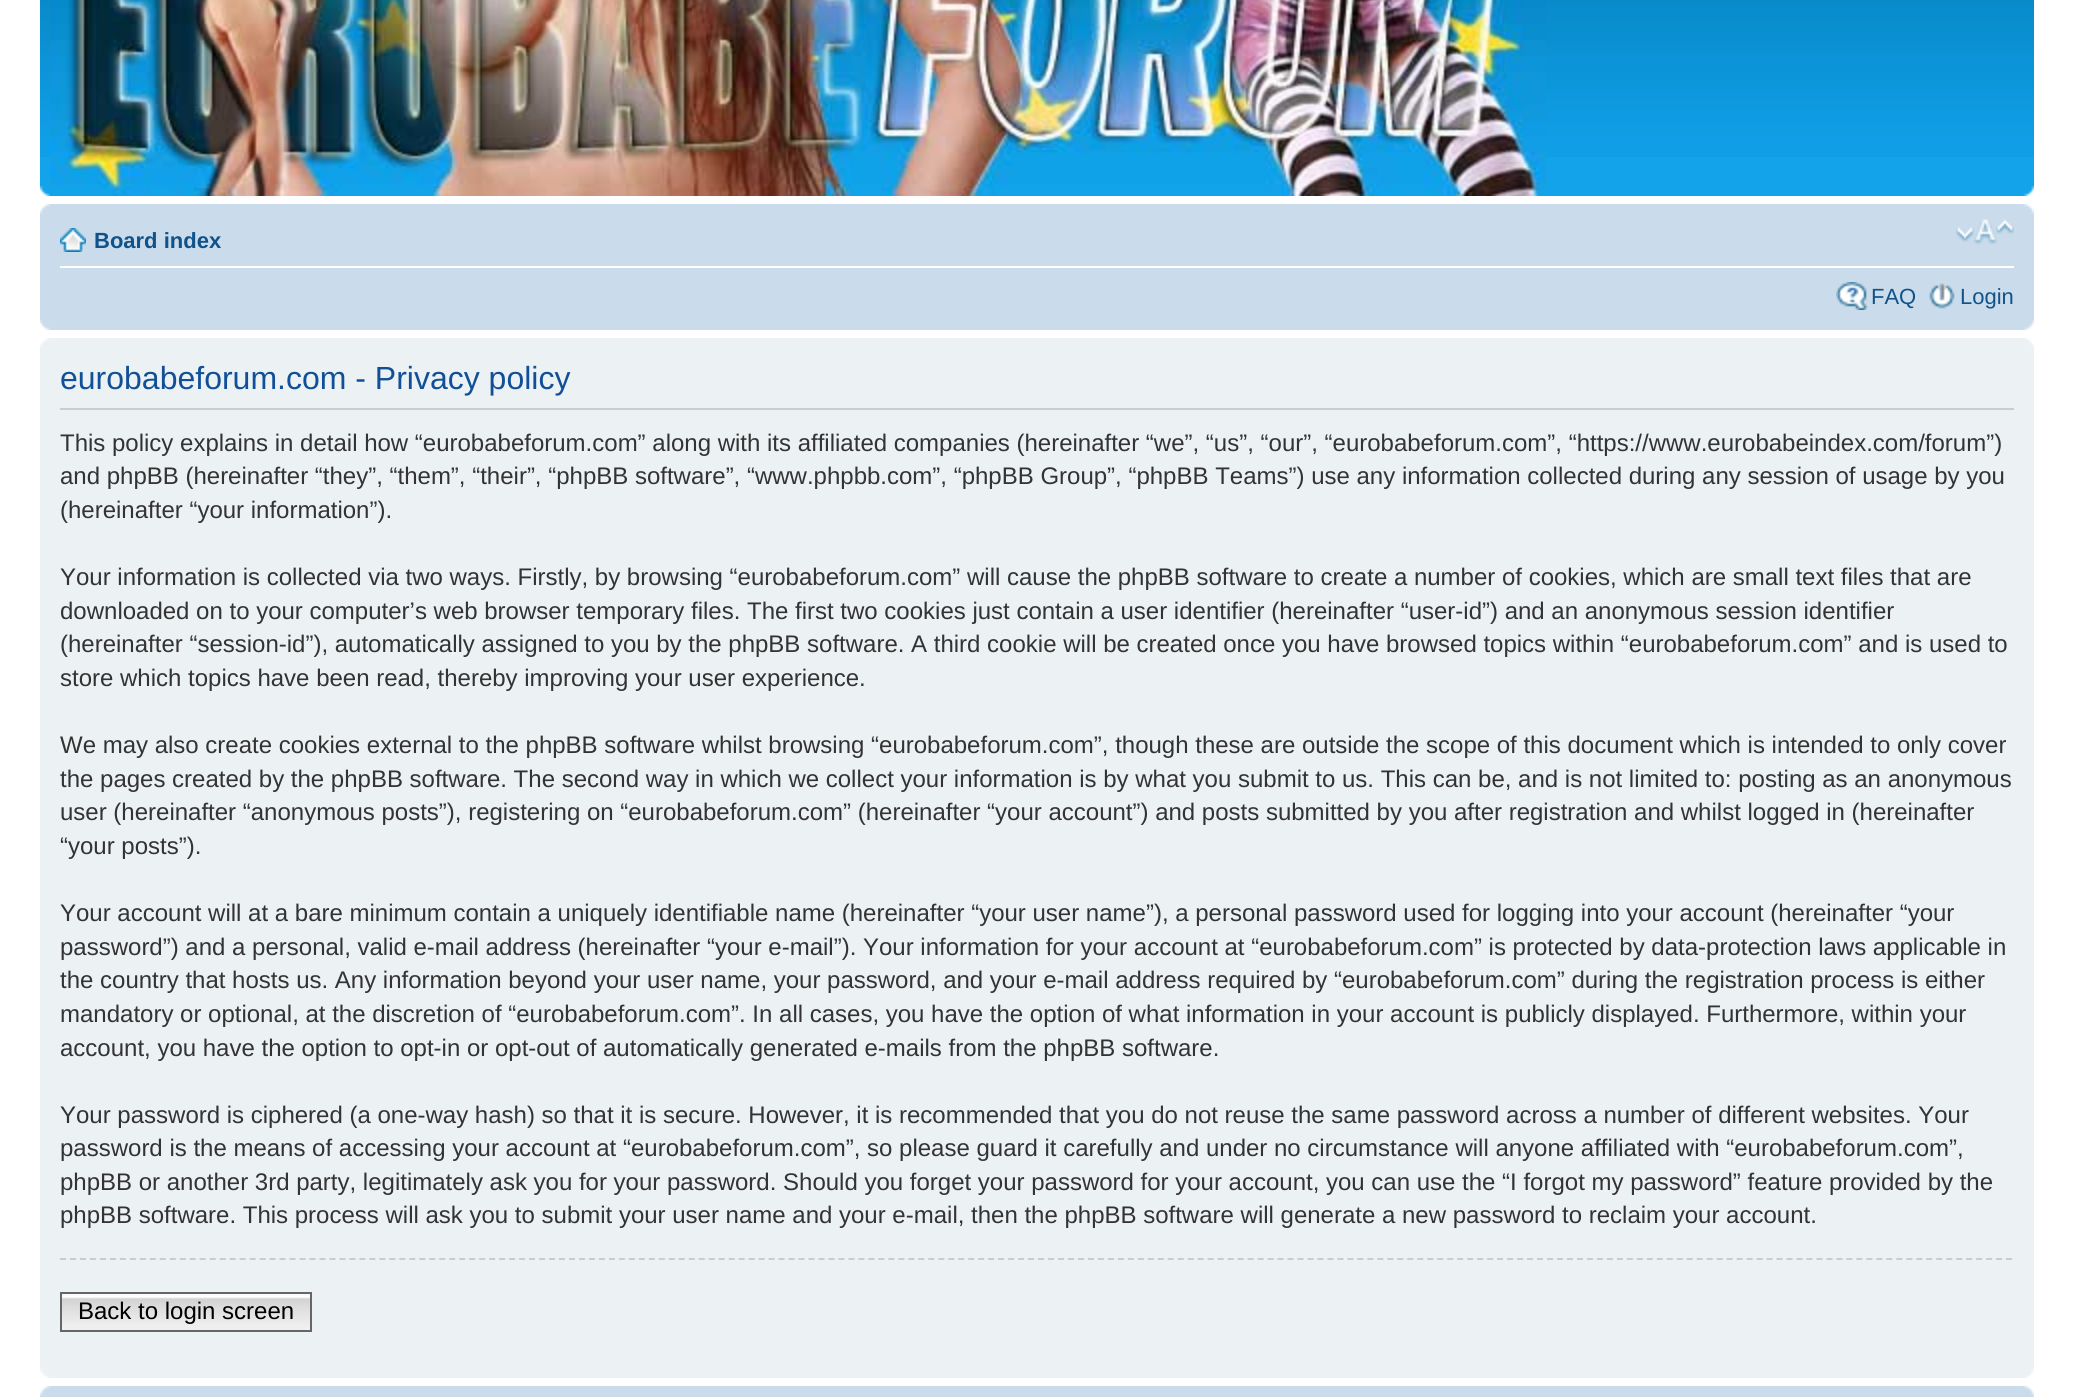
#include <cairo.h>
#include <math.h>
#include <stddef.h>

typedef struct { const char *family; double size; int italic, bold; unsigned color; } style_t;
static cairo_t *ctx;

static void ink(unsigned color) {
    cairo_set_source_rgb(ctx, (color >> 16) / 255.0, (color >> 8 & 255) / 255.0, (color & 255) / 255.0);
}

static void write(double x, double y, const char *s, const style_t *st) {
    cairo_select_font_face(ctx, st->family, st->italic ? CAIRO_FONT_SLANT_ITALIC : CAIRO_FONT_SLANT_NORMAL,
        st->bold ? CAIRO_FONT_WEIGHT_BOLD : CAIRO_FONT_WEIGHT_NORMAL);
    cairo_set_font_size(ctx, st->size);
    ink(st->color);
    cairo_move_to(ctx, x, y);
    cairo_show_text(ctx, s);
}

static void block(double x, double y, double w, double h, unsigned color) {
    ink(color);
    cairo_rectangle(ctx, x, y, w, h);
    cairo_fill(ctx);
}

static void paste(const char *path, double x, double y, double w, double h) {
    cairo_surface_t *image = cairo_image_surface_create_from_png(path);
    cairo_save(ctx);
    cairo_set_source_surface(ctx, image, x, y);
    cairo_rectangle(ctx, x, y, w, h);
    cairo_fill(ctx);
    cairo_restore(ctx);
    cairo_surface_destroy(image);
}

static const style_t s1 = {"Liberation Sans", 22, 0, 1, 0x105289};
static const style_t s2 = {"Liberation Sans", 22, 0, 0, 0x105289};
static const style_t s3 = {"Liberation Sans", 32, 0, 0, 0x115098};
static const style_t s4 = {"Liberation Sans", 24, 0, 0, 0x333333};
static const style_t s5 = {"Liberation Sans", 24, 0, 0, 0x000000};

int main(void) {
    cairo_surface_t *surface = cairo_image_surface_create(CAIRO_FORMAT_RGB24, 2073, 1397);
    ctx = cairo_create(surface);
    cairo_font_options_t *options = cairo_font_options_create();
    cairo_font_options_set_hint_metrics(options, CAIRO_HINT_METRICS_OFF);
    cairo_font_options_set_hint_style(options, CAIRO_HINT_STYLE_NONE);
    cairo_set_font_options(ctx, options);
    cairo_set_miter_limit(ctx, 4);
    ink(0xffffff);
    cairo_paint(ctx);
    block(40, 157, 1994, 39, 0x12a3eb);
    paste("pic1.png", 40, 0, 1994, 157);
    paste("pic2.png", 50, 0, 1496, 196);
    paste("pic3.png", 40, 186, 10, 10);
    paste("pic4.png", 2023, 186, 11, 10);
    block(40, 204, 1994, 126, 0xcadceb);
    paste("pic5.png", 40, 204, 11, 10);
    paste("pic6.png", 2023, 204, 11, 10);
    block(60, 266, 1954, 2, 0xffffff);
    paste("pic7.png", 60, 228, 26, 24);
    write(94, 248, "Board index", &s1);
    paste("pic8.png", 1956, 219, 58, 26);
    paste("pic9.png", 1836, 282, 32, 28);
    write(1871, 304, "FAQ", &s2);
    paste("pic10.png", 1929, 283, 26, 26);
    write(1960, 304, "Login", &s2);
    paste("pic11.png", 40, 320, 10, 10);
    paste("pic12.png", 2024, 320, 10, 10);
    block(40, 338, 1994, 1040, 0xecf1f3);
    paste("pic13.png", 40, 338, 9, 10);
    paste("pic14.png", 2025, 338, 9, 10);
    block(60, 408, 1954, 2, 0xcccccc);
    write(60, 389, "eurobabeforum.com - Privacy policy", &s3);
    write(60, 451, "This policy explains in detail how “eurobabeforum.com” along with its affiliated companies (hereinafter “we”, “us”, “our”, “eurobabeforum.com”, “https://www.eurobabeindex.com/forum”)", &s4);
    write(60, 484, "and phpBB (hereinafter “they”, “them”, “their”, “phpBB software”, “www.phpbb.com”, “phpBB Group”, “phpBB Teams”) use any information collected during any session of usage by you", &s4);
    write(60, 518, "(hereinafter “your information”).", &s4);
    write(60, 585, "Your information is collected via two ways. Firstly, by browsing “eurobabeforum.com” will cause the phpBB software to create a number of cookies, which are small text files that are", &s4);
    write(60, 619, "downloaded on to your computer’s web browser temporary files. The first two cookies just contain a user identifier (hereinafter “user-id”) and an anonymous session identifier", &s4);
    write(60, 652, "(hereinafter “session-id”), automatically assigned to you by the phpBB software. A third cookie will be created once you have browsed topics within “eurobabeforum.com” and is used to", &s4);
    write(60, 686, "store which topics have been read, thereby improving your user experience.", &s4);
    write(60, 753, "We may also create cookies external to the phpBB software whilst browsing “eurobabeforum.com”, though these are outside the scope of this document which is intended to only cover", &s4);
    write(60, 787, "the pages created by the phpBB software. The second way in which we collect your information is by what you submit to us. This can be, and is not limited to: posting as an anonymous", &s4);
    write(60, 820, "user (hereinafter “anonymous posts”), registering on “eurobabeforum.com” (hereinafter “your account”) and posts submitted by you after registration and whilst logged in (hereinafter", &s4);
    write(60, 854, "“your posts”).", &s4);
    write(60, 921, "Your account will at a bare minimum contain a uniquely identifiable name (hereinafter “your user name”), a personal password used for logging into your account (hereinafter “your", &s4);
    write(60, 955, "password”) and a personal, valid e-mail address (hereinafter “your e-mail”). Your information for your account at “eurobabeforum.com” is protected by data-protection laws applicable in", &s4);
    write(60, 988, "the country that hosts us. Any information beyond your user name, your password, and your e-mail address required by “eurobabeforum.com” during the registration process is either", &s4);
    write(60, 1022, "mandatory or optional, at the discretion of “eurobabeforum.com”. In all cases, you have the option of what information in your account is publicly displayed. Furthermore, within your", &s4);
    write(60, 1056, "account, you have the option to opt-in or opt-out of automatically generated e-mails from the phpBB software.", &s4);
    write(60, 1123, "Your password is ciphered (a one-way hash) so that it is secure. However, it is recommended that you do not reuse the same password across a number of different websites. Your", &s4);
    write(60, 1156, "password is the means of accessing your account at “eurobabeforum.com”, so please guard it carefully and under no circumstance will anyone affiliated with “eurobabeforum.com”,", &s4);
    write(60, 1190, "phpBB or another 3rd party, legitimately ask you for your password. Should you forget your password for your account, you can use the “I forgot my password” feature provided by the", &s4);
    write(60, 1223, "phpBB software. This process will ask you to submit your user name and your e-mail, then the phpBB software will generate a new password to reclaim your account.", &s4);
    cairo_new_path(ctx);
    cairo_move_to(ctx, 60, 1259);
    cairo_line_to(ctx, 2014, 1259);
    ink(0xcccccc);
    cairo_set_dash(ctx, (double[]){6, 3.98}, 2, 0);
    cairo_stroke(ctx);
    paste("pic15.png", 62, 1296, 248, 34);
    block(62, 1294, 248, 2, 0xfafafa);
    cairo_rectangle(ctx, 61, 1293, 250, 38);
    ink(0x666666);
    cairo_set_dash(ctx, NULL, 0, 0);
    cairo_stroke(ctx);
    write(78, 1319, "Back to login screen", &s5);
    paste("pic16.png", 40, 1368, 9, 10);
    paste("pic17.png", 2025, 1368, 9, 10);
    block(40, 1386, 1994, 11, 0xcadceb);
    paste("pic5.png", 40, 1386, 11, 10);
    paste("pic6.png", 2023, 1386, 11, 10);
    cairo_surface_write_to_png(surface, "screenshot.png");
    cairo_font_options_destroy(options);
    cairo_destroy(ctx);
    cairo_surface_destroy(surface);
    return 0;
}
